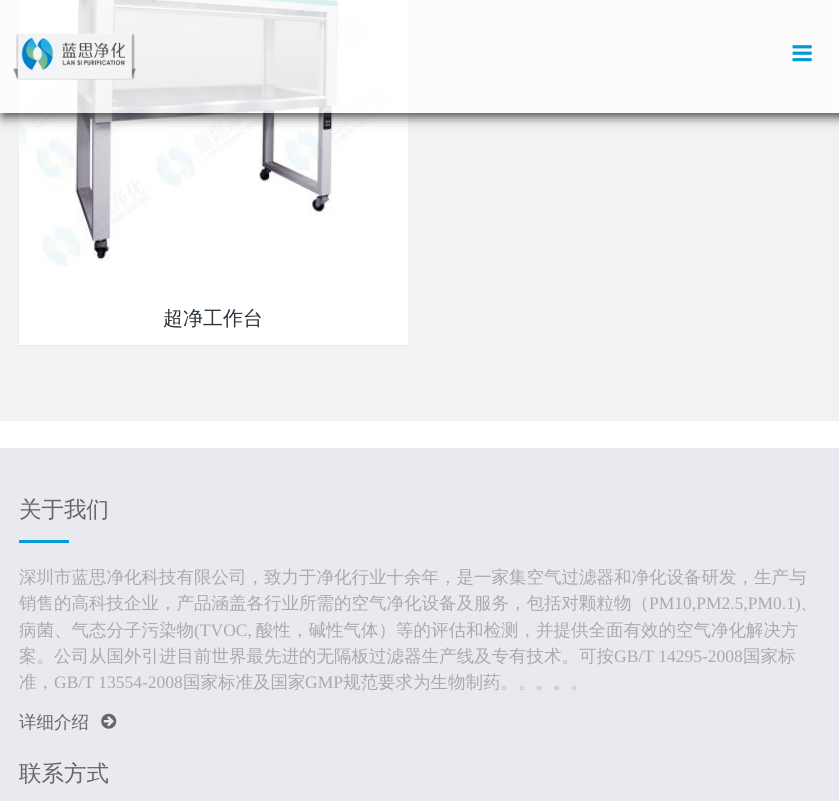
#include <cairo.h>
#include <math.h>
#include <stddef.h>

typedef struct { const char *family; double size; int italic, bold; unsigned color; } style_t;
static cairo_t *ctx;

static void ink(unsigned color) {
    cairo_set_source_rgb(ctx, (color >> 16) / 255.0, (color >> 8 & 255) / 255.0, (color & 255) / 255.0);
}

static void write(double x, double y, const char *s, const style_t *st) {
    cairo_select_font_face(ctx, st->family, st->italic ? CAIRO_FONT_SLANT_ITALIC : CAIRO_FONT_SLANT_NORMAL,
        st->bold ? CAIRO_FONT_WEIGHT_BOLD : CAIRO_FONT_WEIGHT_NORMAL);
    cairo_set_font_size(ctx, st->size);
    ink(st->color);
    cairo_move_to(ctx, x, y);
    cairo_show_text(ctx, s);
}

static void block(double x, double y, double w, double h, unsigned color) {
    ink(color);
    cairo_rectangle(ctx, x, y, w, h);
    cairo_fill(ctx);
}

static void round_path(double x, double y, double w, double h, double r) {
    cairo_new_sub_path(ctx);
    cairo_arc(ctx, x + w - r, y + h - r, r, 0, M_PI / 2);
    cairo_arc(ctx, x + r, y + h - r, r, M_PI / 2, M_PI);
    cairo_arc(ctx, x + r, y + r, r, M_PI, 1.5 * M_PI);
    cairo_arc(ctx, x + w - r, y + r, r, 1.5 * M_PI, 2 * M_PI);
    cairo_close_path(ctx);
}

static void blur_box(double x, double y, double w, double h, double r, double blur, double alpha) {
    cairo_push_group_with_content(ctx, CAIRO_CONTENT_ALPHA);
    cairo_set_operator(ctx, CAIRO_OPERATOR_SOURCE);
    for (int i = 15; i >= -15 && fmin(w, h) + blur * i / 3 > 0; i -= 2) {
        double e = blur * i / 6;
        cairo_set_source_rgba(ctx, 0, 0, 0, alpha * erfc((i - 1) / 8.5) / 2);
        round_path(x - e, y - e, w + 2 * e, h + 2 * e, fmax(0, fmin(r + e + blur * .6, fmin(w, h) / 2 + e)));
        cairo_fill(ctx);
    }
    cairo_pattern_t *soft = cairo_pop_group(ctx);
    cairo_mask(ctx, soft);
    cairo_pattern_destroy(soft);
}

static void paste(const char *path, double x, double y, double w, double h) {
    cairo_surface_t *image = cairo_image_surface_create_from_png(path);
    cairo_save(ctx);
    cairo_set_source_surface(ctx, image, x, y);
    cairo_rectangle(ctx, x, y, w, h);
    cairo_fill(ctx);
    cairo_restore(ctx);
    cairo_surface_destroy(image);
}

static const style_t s1 = {"WenQuanYi Zen Hei Medium", 20, 0, 0, 0x2a333c};
static const style_t s2 = {"WenQuanYi Zen Hei Medium", 22.5, 0, 0, 0x666666};
static const style_t s3 = {"WenQuanYi Zen Hei Medium", 17.5, 0, 0, 0xaaaaaa};
static const style_t s4 = {"Liberation Serif", 17.5, 0, 0, 0xaaaaaa};
static const style_t s5 = {"WenQuanYi Zen Hei Medium", 17.5, 0, 0, 0x666666};

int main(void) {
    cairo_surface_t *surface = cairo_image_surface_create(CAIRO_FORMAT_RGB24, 839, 801);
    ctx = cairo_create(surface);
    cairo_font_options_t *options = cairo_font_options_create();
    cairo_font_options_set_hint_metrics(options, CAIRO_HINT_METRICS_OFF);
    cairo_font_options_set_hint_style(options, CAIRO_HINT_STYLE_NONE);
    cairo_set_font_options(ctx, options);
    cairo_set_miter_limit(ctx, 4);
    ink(0xffffff);
    cairo_paint(ctx);
    block(0, 0, 839, 421, 0xf2f2f2);
    ink(0x000000);
    blur_box(19, -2, 389, 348, 0, 0.5, 0.05);
    block(19, 0, 389, 345, 0xffffff);
    paste("pic3.png", 19, 0, 374, 266);
    cairo_save(ctx);
    cairo_set_fill_rule(ctx, CAIRO_FILL_RULE_EVEN_ODD);
    cairo_new_path(ctx);
    cairo_move_to(ctx, 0, 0);
    cairo_line_to(ctx, 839, 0);
    cairo_line_to(ctx, 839, 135);
    cairo_line_to(ctx, 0, 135);
    cairo_close_path(ctx);
    cairo_move_to(ctx, 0, 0);
    cairo_line_to(ctx, 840, 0);
    cairo_line_to(ctx, 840, 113);
    cairo_line_to(ctx, 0, 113);
    cairo_close_path(ctx);
    cairo_clip(ctx);
    ink(0x333333);
    blur_box(3, 4, 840, 112, 0, 6, 1);
    cairo_restore(ctx);
    cairo_set_source_rgba(ctx, 1, 1, 1, 0.78);
    cairo_rectangle(ctx, 0, 0, 839, 113);
    cairo_fill(ctx);
    paste("pic1.png", 13, 33, 124, 47);
    paste("pic2.png", 792, 45, 20, 17);
    write(163, 325, "超净工作台", &s1);
    block(0, 448, 839, 353, 0xe8eaef);
    write(19, 517, "关于我们", &s2);
    block(19, 540, 50, 3, 0x0199da);
    write(19, 583, "深圳市蓝思净化科技有限公司，致力于净化行业十余年，是一家集空气过滤器和净化设备研发，生产与", &s3);
    write(19, 609, "销售的高科技企业，产品涵盖各行业所需的空气净化设备及服务，包括对颗粒物（", &s3);
    write(649, 609, "PM10,PM2.5,PM0.1)", &s4);
    write(800, 609, "、", &s3);
    write(19, 636, "病菌、气态分子污染物", &s3);
    write(194, 636, "(TVOC,", &s4);
    write(256, 636, "酸性，碱性气体）等的评估和检测，并提供全面有效的空气净化解决方", &s3);
    write(19, 662, "案。公司从国外引进目前世界最先进的无隔板过滤器生产线及专有技术。可按", &s3);
    write(614, 662, "GB/T 14295-2008", &s4);
    write(743, 662, "国家标", &s3);
    write(19, 688, "准，", &s3);
    write(54, 688, "GB/T 13554-2008", &s4);
    write(183, 688, "国家标准及国家", &s3);
    write(305, 688, "GMP", &s4);
    write(343, 688, "规范要求为生物制药。。。。。", &s3);
    write(19, 728, "详细介绍", &s5);
    paste("pic4.png", 101, 713, 16, 16);
    write(19, 781, "联系方式", &s2);
    cairo_surface_write_to_png(surface, "screenshot.png");
    cairo_font_options_destroy(options);
    cairo_destroy(ctx);
    cairo_surface_destroy(surface);
    return 0;
}
